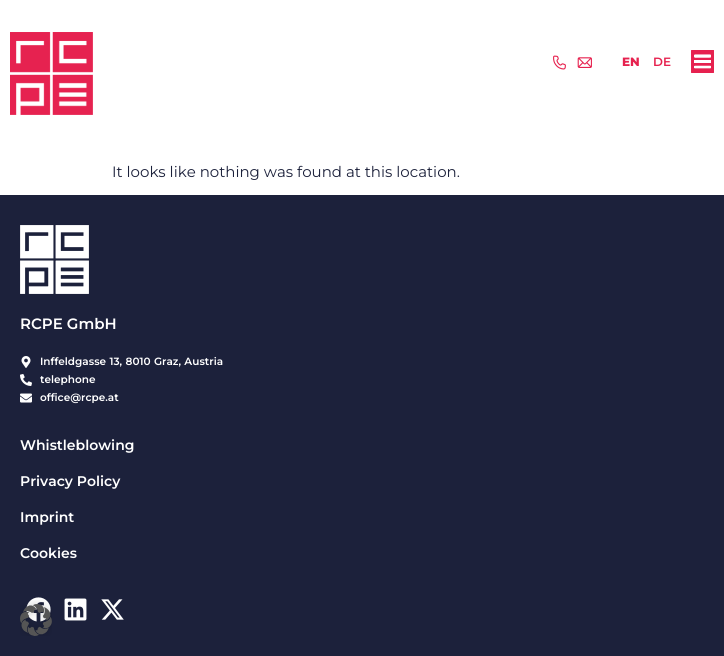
#include <cairo.h>
#include <math.h>
#include <stddef.h>

typedef struct { const char *family; double size; int italic, bold; unsigned color; } style_t;
static cairo_t *ctx;

static void ink(unsigned color) {
    cairo_set_source_rgb(ctx, (color >> 16) / 255.0, (color >> 8 & 255) / 255.0, (color & 255) / 255.0);
}

static void write(double x, double y, const char *s, const style_t *st) {
    cairo_select_font_face(ctx, st->family, st->italic ? CAIRO_FONT_SLANT_ITALIC : CAIRO_FONT_SLANT_NORMAL,
        st->bold ? CAIRO_FONT_WEIGHT_BOLD : CAIRO_FONT_WEIGHT_NORMAL);
    cairo_set_font_size(ctx, st->size);
    ink(st->color);
    cairo_move_to(ctx, x, y);
    cairo_show_text(ctx, s);
}

static void write_spaced(double x, double y, const char *s, double letter, double word) {
    cairo_move_to(ctx, x, y);
    while (*s) {
        char ch[5] = {0};
        int n = 0;
        do ch[n++] = *s++; while ((*s & 0xC0) == 0x80);
        cairo_show_text(ctx, ch);
        cairo_rel_move_to(ctx, letter + word * (*ch == ' '), 0);
    }
}

static void block(double x, double y, double w, double h, unsigned color) {
    ink(color);
    cairo_rectangle(ctx, x, y, w, h);
    cairo_fill(ctx);
}

static void paste(const char *path, double x, double y, double w, double h) {
    cairo_surface_t *image = cairo_image_surface_create_from_png(path);
    cairo_save(ctx);
    cairo_set_source_surface(ctx, image, x, y);
    cairo_rectangle(ctx, x, y, w, h);
    cairo_fill(ctx);
    cairo_restore(ctx);
    cairo_surface_destroy(image);
}

static const style_t s1 = {"Montserrat ExtraBold", 12, 0, 0, 0xe6224f};
static const style_t s2 = {"Montserrat SemiBold", 12, 0, 0, 0xe6224f};
static const style_t s3 = {"Montserrat", 15, 0, 0, 0x1c213b};
static const style_t s4 = {"Montserrat SemiBold", 15, 0, 0, 0xffffff};
static const style_t s5 = {"Montserrat SemiBold", 10.5, 0, 0, 0xffffff};
static const style_t s6 = {"Montserrat SemiBold", 14, 0, 0, 0xffffff};

int main(void) {
    cairo_surface_t *surface = cairo_image_surface_create(CAIRO_FORMAT_RGB24, 724, 656);
    ctx = cairo_create(surface);
    cairo_font_options_t *options = cairo_font_options_create();
    cairo_font_options_set_hint_metrics(options, CAIRO_HINT_METRICS_OFF);
    cairo_font_options_set_hint_style(options, CAIRO_HINT_STYLE_NONE);
    cairo_set_font_options(ctx, options);
    cairo_set_miter_limit(ctx, 4);
    ink(0xffffff);
    cairo_paint(ctx);
    paste("pic1.png", 10, 32, 83, 83);
    paste("pic2.png", 553, 55, 13, 15);
    paste("pic3.png", 577, 57, 15, 11);
    write(622, 66, "EN", &s1);
    write(653, 66, "DE", &s2);
    paste("pic4.png", 691, 50, 23, 23);
    write(112, 177, "It looks like nothing was found at this location.", &s3);
    block(0, 195, 724, 461, 0x1c213b);
    paste("pic5.png", 20, 225, 69, 69);
    write(20, 329, "RCPE GmbH", &s4);
    paste("pic6.png", 21, 356, 10, 12);
    cairo_set_font_size(ctx, 10.5);
    write_spaced(40, 365, "Inffeldgasse 13, 8010 Graz, Austria", 0, 0.5);
    paste("pic7.png", 20, 374, 12, 12);
    write(40, 383, "telephone", &s5);
    paste("pic8.png", 20, 393, 12, 10);
    write(40, 401, "office@rcpe.at", &s5);
    write(20, 450, "Whistleblowing", &s6);
    write(20, 486, "Privacy Policy", &s6);
    write(20, 522, "Imprint", &s6);
    write(20, 558, "Cookies", &s6);
    paste("pic9.png", 26, 597, 25, 25);
    paste("pic10.png", 64, 598, 23, 23);
    paste("pic11.png", 101, 599, 23, 21);
    paste("pic12.png", 20, 600, 32, 36);
    cairo_surface_write_to_png(surface, "screenshot.png");
    cairo_font_options_destroy(options);
    cairo_destroy(ctx);
    cairo_surface_destroy(surface);
    return 0;
}
